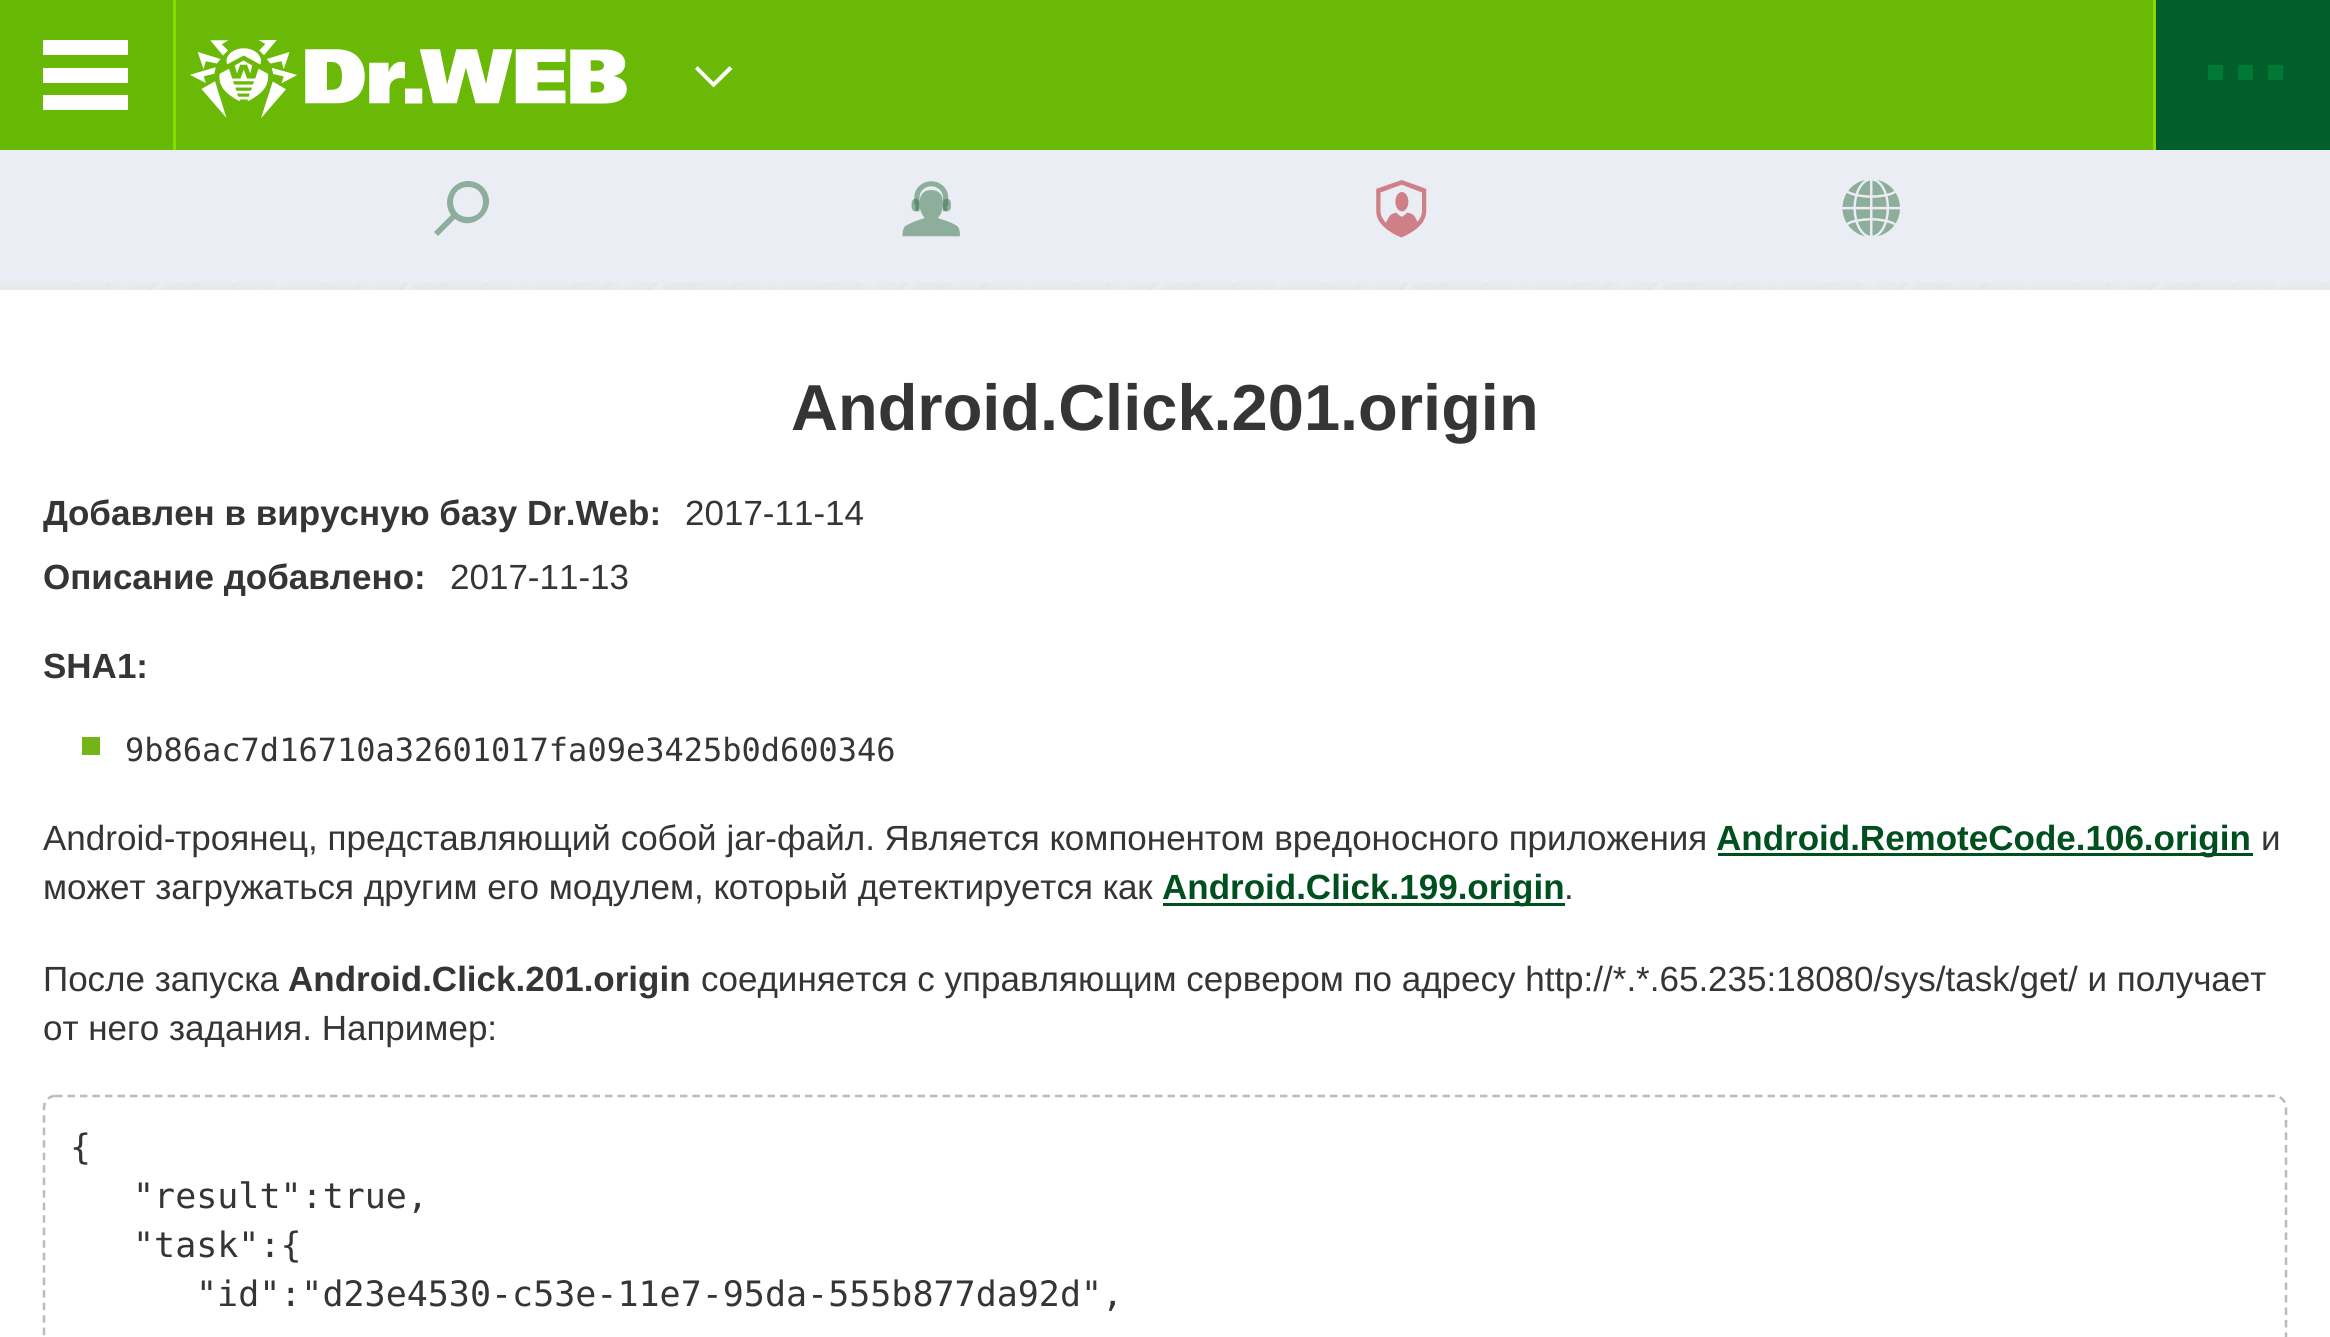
#include <cairo.h>
#include <math.h>
#include <stddef.h>

typedef struct { const char *family; double size; int italic, bold; unsigned color; } style_t;
static cairo_t *ctx;

static void ink(unsigned color) {
    cairo_set_source_rgb(ctx, (color >> 16) / 255.0, (color >> 8 & 255) / 255.0, (color & 255) / 255.0);
}

static void write(double x, double y, const char *s, const style_t *st) {
    cairo_select_font_face(ctx, st->family, st->italic ? CAIRO_FONT_SLANT_ITALIC : CAIRO_FONT_SLANT_NORMAL,
        st->bold ? CAIRO_FONT_WEIGHT_BOLD : CAIRO_FONT_WEIGHT_NORMAL);
    cairo_set_font_size(ctx, st->size);
    ink(st->color);
    cairo_move_to(ctx, x, y);
    cairo_show_text(ctx, s);
}

static void block(double x, double y, double w, double h, unsigned color) {
    ink(color);
    cairo_rectangle(ctx, x, y, w, h);
    cairo_fill(ctx);
}

static void paste(const char *path, double x, double y, double w, double h) {
    cairo_surface_t *image = cairo_image_surface_create_from_png(path);
    cairo_save(ctx);
    cairo_set_source_surface(ctx, image, x, y);
    cairo_rectangle(ctx, x, y, w, h);
    cairo_fill(ctx);
    cairo_restore(ctx);
    cairo_surface_destroy(image);
}

static const style_t s1 = {"Liberation Sans", 65, 0, 1, 0x353535};
static const style_t s2 = {"Liberation Sans", 35, 0, 1, 0x353535};
static const style_t s3 = {"Liberation Sans", 35, 0, 0, 0x353535};
static const style_t s4 = {"DejaVu Sans Mono", 32, 0, 0, 0x353535};
static const style_t s5 = {"Liberation Sans", 35, 0, 1, 0x004f1f};
static const style_t s6 = {"DejaVu Sans Mono", 35, 0, 0, 0x353535};

int main(void) {
    cairo_surface_t *surface = cairo_image_surface_create(CAIRO_FORMAT_RGB24, 2330, 1337);
    ctx = cairo_create(surface);
    cairo_font_options_t *options = cairo_font_options_create();
    cairo_font_options_set_hint_metrics(options, CAIRO_HINT_METRICS_OFF);
    cairo_font_options_set_hint_style(options, CAIRO_HINT_STYLE_NONE);
    cairo_set_font_options(ctx, options);
    cairo_set_miter_limit(ctx, 4);
    ink(0xe9e9e9);
    cairo_paint(ctx);
    paste("pic1.png", 41, 283, 2288, 7);
    block(176, 0, 1977, 150, 0x6ab906);
    block(0, 0, 173, 150, 0x68b905);
    block(173, 0, 3, 150, 0x89db01);
    block(43, 40, 85, 15, 0xffffff);
    block(43, 68, 85, 15, 0xffffff);
    block(43, 95, 85, 15, 0xffffff);
    paste("pic2.png", 190, 40, 437, 78);
    cairo_new_path(ctx);
    cairo_move_to(ctx, 695, 69);
    cairo_line_to(ctx, 697.5, 66);
    cairo_line_to(ctx, 713.5, 82);
    cairo_line_to(ctx, 729.5, 66);
    cairo_line_to(ctx, 732.5, 69);
    cairo_line_to(ctx, 713.5, 87.5);
    cairo_close_path(ctx);
    cairo_fill(ctx);
    block(2156, 0, 174, 150, 0x005f2a);
    block(2153, 0, 3, 150, 0x89db01);
    block(2208, 65, 15, 15, 0x017936);
    block(2238, 65, 15, 15, 0x017936);
    block(2268, 65, 15, 15, 0x017936);
    block(0, 150, 2330, 133, 0xeaedf4);
    ink(0x8eae9c);
    cairo_new_path(ctx);
    cairo_move_to(ctx, 468, 181);
    cairo_curve_to(ctx, 451, 181, 441, 201, 451, 215);
    cairo_line_to(ctx, 434, 232);
    cairo_line_to(ctx, 438, 236);
    cairo_line_to(ctx, 455, 219);
    cairo_curve_to(ctx, 475, 234, 501, 206, 483, 187);
    cairo_curve_to(ctx, 479, 183, 473, 181, 468, 181);
    cairo_close_path(ctx);
    cairo_move_to(ctx, 468, 217);
    cairo_curve_to(ctx, 448, 217, 448, 187, 468, 187);
    cairo_curve_to(ctx, 488, 187, 488, 217, 468, 217);
    cairo_close_path(ctx);
    cairo_fill(ctx);
    paste("pic3.png", 902, 181, 58, 56);
    paste("pic4.png", 1376, 180, 51, 58);
    paste("pic5.png", 1842, 180, 58, 57);
    block(0, 290, 2330, 1047, 0xffffff);
    write(791, 430, "Android.Click.201.origin", &s1);
    write(43, 525, "Добавлен в вирусную базу Dr.Web:", &s2);
    write(685, 525, "2017-11-14", &s3);
    write(43, 589, "Описание добавлено:", &s2);
    write(450, 589, "2017-11-13", &s3);
    write(43, 678, "SHA1:", &s2);
    block(82, 737, 18, 18, 0x73b419);
    write(125, 761, "9b86ac7d16710a32601017fa09e3425b0d600346", &s4);
    write(43, 850, "Android-троянец, представляющий собой jar-файл. Является компонентом вредоносного приложения", &s3);
    block(1718, 853, 535, 3, 0x004f1f);
    write(1716, 850, "Android.RemoteCode.106.origin", &s5);
    write(2261, 850, "и", &s3);
    write(43, 899, "может загружаться другим его модулем, который детектируется как", &s3);
    block(1163, 903, 402, 3, 0x004f1f);
    write(1162, 899, "Android.Click.199.origin", &s5);
    write(1564, 899, ".", &s3);
    write(43, 991, "После запуска", &s3);
    write(288, 991, "Android.Click.201.origin", &s2);
    write(701, 991, "соединяется с управляющим сервером по адресу http://*.*.65.235:18080/sys/task/get/ и получает", &s3);
    write(43, 1040, "от него задания. Например:", &s3);
    cairo_new_path(ctx);
    cairo_move_to(ctx, 55, 1096);
    cairo_line_to(ctx, 2275, 1096);
    cairo_curve_to(ctx, 2281, 1096, 2286, 1101.5, 2286, 1107.5);
    cairo_line_to(ctx, 2286, 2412.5);
    cairo_curve_to(ctx, 2286, 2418.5, 2281, 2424, 2275, 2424);
    cairo_line_to(ctx, 55, 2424);
    cairo_curve_to(ctx, 49, 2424, 44, 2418.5, 44, 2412.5);
    cairo_line_to(ctx, 44, 1107.5);
    cairo_curve_to(ctx, 44, 1101.5, 49, 1096, 55, 1096);
    cairo_close_path(ctx);
    ink(0xbbbbbb);
    cairo_set_line_width(ctx, 2.5);
    cairo_set_dash(ctx, (double[]){7.5, 5}, 2, 0);
    cairo_stroke(ctx);
    write(70, 1159, "{", &s6);
    write(133, 1208, "\"result\":true,", &s6);
    write(133, 1257, "\"task\":{", &s6);
    write(196, 1306, "\"id\":\"d23e4530-c53e-11e7-95da-555b877da92d\",", &s6);
    cairo_surface_write_to_png(surface, "screenshot.png");
    cairo_font_options_destroy(options);
    cairo_destroy(ctx);
    cairo_surface_destroy(surface);
    return 0;
}
